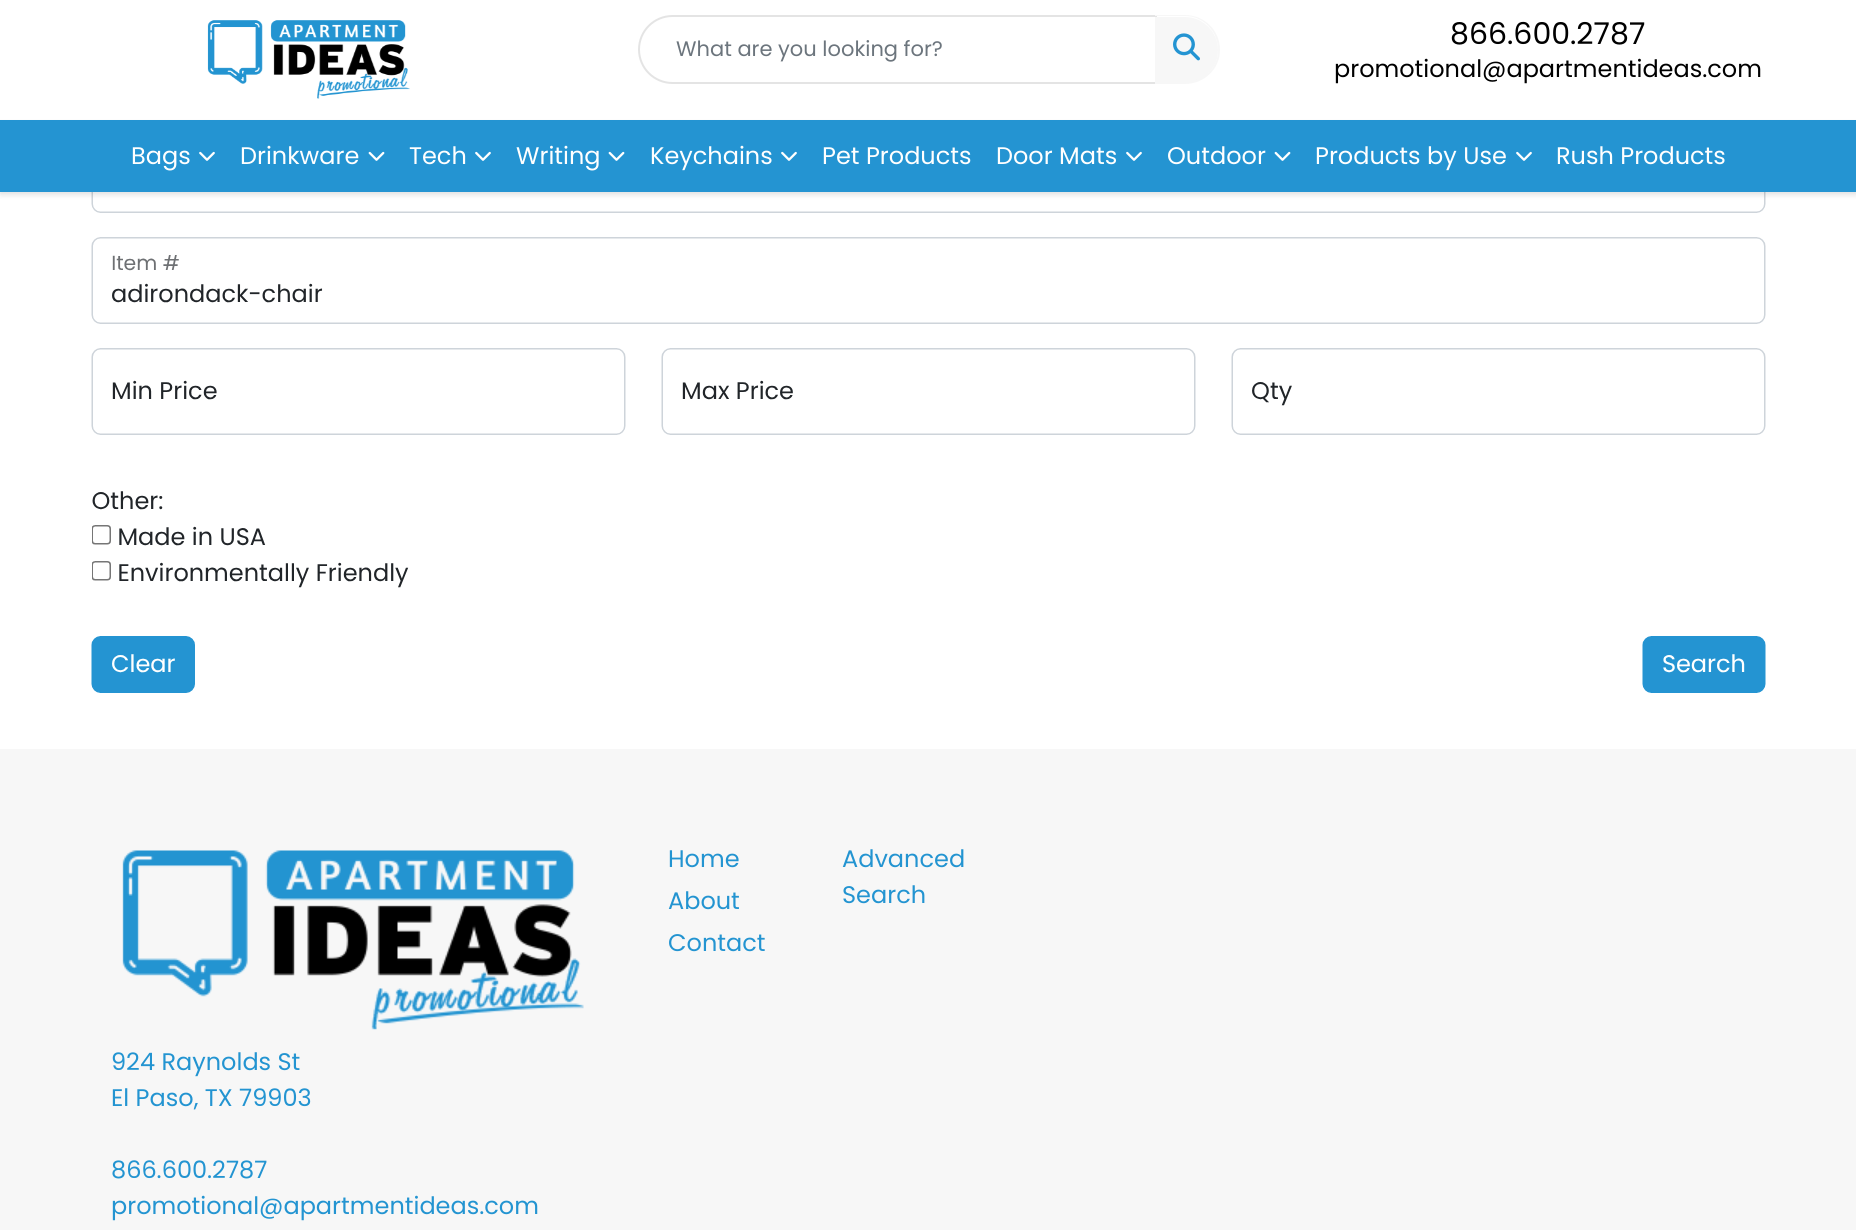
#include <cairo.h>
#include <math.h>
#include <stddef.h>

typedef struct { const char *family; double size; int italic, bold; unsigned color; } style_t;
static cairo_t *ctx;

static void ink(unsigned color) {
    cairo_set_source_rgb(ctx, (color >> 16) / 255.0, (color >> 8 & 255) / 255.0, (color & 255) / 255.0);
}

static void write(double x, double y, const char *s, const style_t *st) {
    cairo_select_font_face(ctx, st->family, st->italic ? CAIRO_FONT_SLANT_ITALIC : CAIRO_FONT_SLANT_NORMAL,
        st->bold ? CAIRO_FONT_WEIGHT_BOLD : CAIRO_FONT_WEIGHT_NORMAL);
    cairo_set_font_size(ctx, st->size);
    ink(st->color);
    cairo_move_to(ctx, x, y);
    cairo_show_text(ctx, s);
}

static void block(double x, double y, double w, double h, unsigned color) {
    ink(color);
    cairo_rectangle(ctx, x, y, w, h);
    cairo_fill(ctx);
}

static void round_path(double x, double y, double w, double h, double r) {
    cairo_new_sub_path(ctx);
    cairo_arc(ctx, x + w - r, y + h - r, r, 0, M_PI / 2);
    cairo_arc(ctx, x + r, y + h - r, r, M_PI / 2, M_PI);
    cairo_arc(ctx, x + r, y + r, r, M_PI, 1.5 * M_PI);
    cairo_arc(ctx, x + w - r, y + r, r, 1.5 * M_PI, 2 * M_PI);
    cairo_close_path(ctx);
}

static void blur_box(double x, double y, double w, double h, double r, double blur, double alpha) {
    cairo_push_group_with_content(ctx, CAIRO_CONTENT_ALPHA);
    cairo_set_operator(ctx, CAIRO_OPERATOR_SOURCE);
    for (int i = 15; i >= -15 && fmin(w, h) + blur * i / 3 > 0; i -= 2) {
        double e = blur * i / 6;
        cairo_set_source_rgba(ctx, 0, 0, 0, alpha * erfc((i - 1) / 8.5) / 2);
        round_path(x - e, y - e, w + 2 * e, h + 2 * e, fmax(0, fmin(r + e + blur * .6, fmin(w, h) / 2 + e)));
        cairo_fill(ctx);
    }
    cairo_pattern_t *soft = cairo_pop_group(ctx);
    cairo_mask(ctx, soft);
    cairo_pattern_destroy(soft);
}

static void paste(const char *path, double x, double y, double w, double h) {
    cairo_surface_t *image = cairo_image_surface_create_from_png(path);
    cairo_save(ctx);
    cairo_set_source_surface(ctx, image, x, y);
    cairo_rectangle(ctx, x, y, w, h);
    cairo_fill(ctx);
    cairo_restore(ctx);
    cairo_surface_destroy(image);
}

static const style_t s1 = {"Poppins", 21, 0, 0, 0x6c757d};
static const style_t s2 = {"Poppins", 30, 0, 0, 0x000000};
static const style_t s3 = {"Poppins", 24, 0, 0, 0x000000};
static const style_t s4 = {"Poppins", 24, 0, 0, 0xffffff};
static const style_t s5 = {"Poppins", 24, 0, 0, 0x2394d1};

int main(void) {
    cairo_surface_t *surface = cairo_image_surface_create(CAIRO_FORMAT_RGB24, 1856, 1230);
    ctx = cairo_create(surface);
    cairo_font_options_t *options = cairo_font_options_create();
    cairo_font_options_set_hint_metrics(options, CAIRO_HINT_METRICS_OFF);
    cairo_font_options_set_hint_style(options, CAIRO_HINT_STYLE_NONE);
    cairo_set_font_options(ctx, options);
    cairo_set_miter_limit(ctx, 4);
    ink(0xffffff);
    cairo_paint(ctx);
    paste("pic5.png", 91, 192, 1675, 501);
    ink(0x000000);
    blur_box(0, 0, 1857, 192, 0, 4, 0.1);
    block(0, 0, 1856, 120, 0xffffff);
    paste("pic1.png", 207, 20, 203, 79);
    cairo_new_path(ctx);
    cairo_move_to(ctx, 672.5, 16);
    cairo_line_to(ctx, 1156, 16);
    cairo_line_to(ctx, 1156, 83);
    cairo_line_to(ctx, 672.5, 83);
    cairo_curve_to(ctx, 654, 83, 639, 68, 639, 49.5);
    cairo_curve_to(ctx, 639, 31, 654, 16, 672.5, 16);
    cairo_close_path(ctx);
    ink(0xe4e4e4);
    cairo_stroke(ctx);
    write(676, 56, "What are you looking for?", &s1);
    ink(0xf7f7f7);
    cairo_new_path(ctx);
    cairo_move_to(ctx, 1155, 17);
    cairo_line_to(ctx, 1185, 17);
    cairo_curve_to(ctx, 1203, 17, 1218, 32, 1218, 50);
    cairo_curve_to(ctx, 1218, 68, 1203, 83, 1185, 83);
    cairo_line_to(ctx, 1155, 83);
    cairo_close_path(ctx);
    cairo_fill(ctx);
    cairo_set_fill_rule(ctx, CAIRO_FILL_RULE_EVEN_ODD);
    cairo_new_path(ctx);
    cairo_move_to(ctx, 1155, 15);
    cairo_line_to(ctx, 1185, 15);
    cairo_curve_to(ctx, 1204, 15, 1220, 30, 1220, 50);
    cairo_curve_to(ctx, 1220, 69, 1204, 84, 1185, 84);
    cairo_line_to(ctx, 1155, 84);
    cairo_close_path(ctx);
    cairo_move_to(ctx, 1155, 16);
    cairo_line_to(ctx, 1185, 16);
    cairo_curve_to(ctx, 1203, 16, 1218, 31, 1218, 50);
    cairo_curve_to(ctx, 1218, 68, 1203, 82, 1185, 82);
    cairo_line_to(ctx, 1155, 82);
    cairo_close_path(ctx);
    cairo_fill(ctx);
    paste("pic2.png", 1173, 33, 27, 28);
    write(1450, 44, "866.600.2787", &s2);
    write(1334, 77, "promotional@apartmentideas.com", &s3);
    ink(0x000000);
    blur_box(0, 123, 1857, 72, 0, 3, 0.07);
    block(0, 120, 1856, 72, 0x2494d2);
    write(131, 164, "Bags", &s4);
    paste("pic3.png", 199, 151, 16, 10);
    write(240, 164, "Drinkware", &s4);
    paste("pic4.png", 368, 151, 17, 10);
    write(409, 164, "Tech", &s4);
    paste("pic3.png", 475, 151, 16, 10);
    write(516, 164, "Writing", &s4);
    paste("pic4.png", 608, 151, 17, 10);
    write(650, 164, "Keychains", &s4);
    paste("pic3.png", 781, 151, 16, 10);
    write(822, 164, "Pet Products", &s4);
    write(996, 164, "Door Mats", &s4);
    paste("pic3.png", 1126, 151, 16, 10);
    write(1167, 164, "Outdoor", &s4);
    paste("pic4.png", 1274, 151, 17, 10);
    write(1315, 164, "Products by Use", &s4);
    paste("pic3.png", 1516, 151, 16, 10);
    write(1556, 164, "Rush Products", &s4);
    block(0, 749, 1856, 481, 0xf7f7f7);
    write(668, 867, "Home", &s5);
    write(668, 909, "About", &s5);
    write(668, 951, "Contact", &s5);
    write(842, 867, "Advanced", &s5);
    write(842, 903, "Search", &s5);
    paste("pic6.png", 122, 850, 462, 180);
    write(111, 1070, "924 Raynolds St", &s5);
    write(111, 1106, "El Paso, TX 79903", &s5);
    write(111, 1178, "866.600.2787", &s5);
    write(111, 1214, "promotional@apartmentideas.com", &s5);
    cairo_surface_write_to_png(surface, "screenshot.png");
    cairo_font_options_destroy(options);
    cairo_destroy(ctx);
    cairo_surface_destroy(surface);
    return 0;
}
